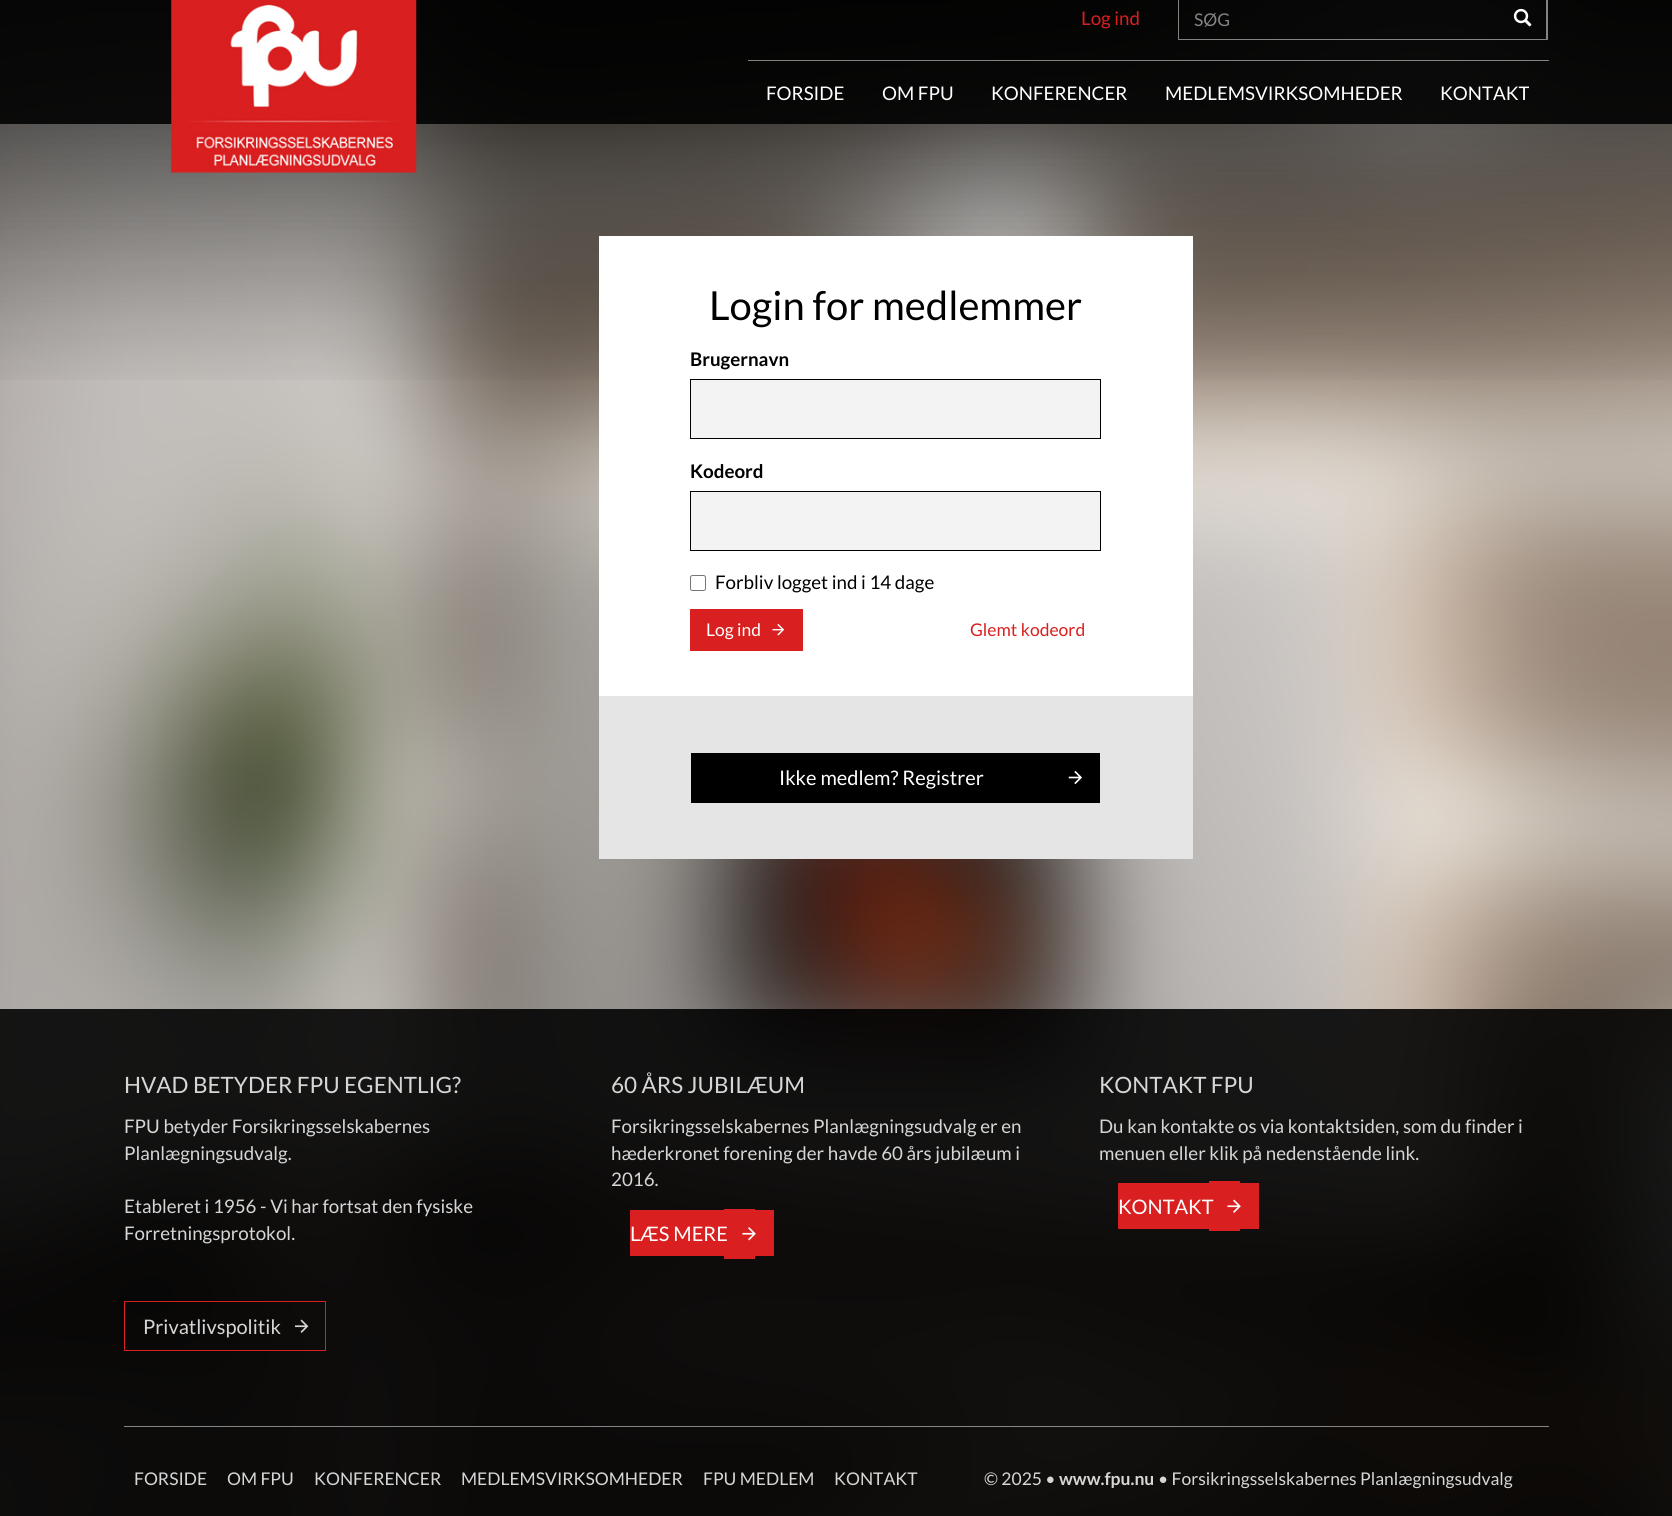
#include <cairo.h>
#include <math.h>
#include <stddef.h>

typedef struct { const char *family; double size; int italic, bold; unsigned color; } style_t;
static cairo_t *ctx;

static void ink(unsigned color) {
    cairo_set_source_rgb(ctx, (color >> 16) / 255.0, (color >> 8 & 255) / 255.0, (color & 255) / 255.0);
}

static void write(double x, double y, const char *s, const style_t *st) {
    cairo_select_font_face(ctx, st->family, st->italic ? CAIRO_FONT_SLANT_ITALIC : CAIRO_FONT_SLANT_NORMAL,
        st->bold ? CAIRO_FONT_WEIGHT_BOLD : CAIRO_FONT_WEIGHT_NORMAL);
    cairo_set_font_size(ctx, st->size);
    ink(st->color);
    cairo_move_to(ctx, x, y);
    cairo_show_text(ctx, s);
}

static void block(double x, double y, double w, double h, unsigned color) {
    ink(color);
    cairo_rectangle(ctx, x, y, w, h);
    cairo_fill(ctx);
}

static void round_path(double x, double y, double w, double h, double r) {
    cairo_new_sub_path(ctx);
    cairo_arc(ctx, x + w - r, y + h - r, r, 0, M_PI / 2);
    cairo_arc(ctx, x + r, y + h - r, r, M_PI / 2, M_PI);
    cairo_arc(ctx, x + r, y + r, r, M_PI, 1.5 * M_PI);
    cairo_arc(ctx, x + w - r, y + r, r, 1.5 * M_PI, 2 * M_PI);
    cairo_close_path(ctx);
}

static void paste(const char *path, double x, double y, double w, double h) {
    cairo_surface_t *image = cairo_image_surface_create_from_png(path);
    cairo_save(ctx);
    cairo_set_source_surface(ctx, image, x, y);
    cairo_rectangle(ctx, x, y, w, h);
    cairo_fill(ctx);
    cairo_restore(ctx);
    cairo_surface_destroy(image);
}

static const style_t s1 = {"Lato", 18.75, 0, 0, 0xd91f1f};
static const style_t s2 = {"Lato", 17.5, 0, 0, 0x838382};
static const style_t s3 = {"Lato", 18.75, 0, 0, 0xffffff};
static const style_t s4 = {"Lato", 40, 0, 0, 0x000000};
static const style_t s5 = {"Lato", 18.75, 0, 1, 0x000000};
static const style_t s6 = {"Lato", 18.75, 0, 0, 0x000000};
static const style_t s7 = {"Lato", 17.5, 0, 0, 0xffffff};
static const style_t s8 = {"Lato", 17.5, 0, 0, 0xd91f1f};
static const style_t s9 = {"Lato", 20, 0, 0, 0xffffff};
static const style_t s10 = {"Lato", 22.5, 0, 0, 0xd6d6d6};
static const style_t s11 = {"Lato", 18.75, 0, 0, 0xd6d6d6};
static const style_t s12 = {"Lato", 20, 0, 0, 0xd6d6d6};
static const style_t s13 = {"Lato", 17.5, 0, 0, 0xd6d6d6};
static const style_t s14 = {"Lato", 17.5, 0, 1, 0xd6d6d6};

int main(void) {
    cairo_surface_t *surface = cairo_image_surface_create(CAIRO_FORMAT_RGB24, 1672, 1516);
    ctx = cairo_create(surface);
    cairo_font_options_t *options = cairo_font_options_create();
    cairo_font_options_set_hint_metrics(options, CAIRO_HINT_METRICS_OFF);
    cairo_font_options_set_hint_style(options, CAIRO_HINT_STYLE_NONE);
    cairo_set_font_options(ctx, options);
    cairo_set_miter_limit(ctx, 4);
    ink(0xffffff);
    cairo_paint(ctx);
    paste("pic1.png", 0, 0, 1672, 1516);
    paste("pic2.png", 0, 0, 1672, 380);
    cairo_set_source_rgba(ctx, 0, 0, 0, 0.88);
    cairo_rectangle(ctx, 0, 0, 1672, 124);
    cairo_fill(ctx);
    paste("pic3.png", 171, 0, 246, 173);
    write(1081, 25, "Log ind", &s1);
    cairo_set_source_rgba(ctx, 1, 1, 1, 0.5);
    cairo_new_path(ctx);
    cairo_move_to(ctx, 1499, 40);
    cairo_line_to(ctx, 1178, 40);
    cairo_line_to(ctx, 1179, 39);
    cairo_line_to(ctx, 1499, 39);
    cairo_close_path(ctx);
    cairo_fill(ctx);
    cairo_new_path(ctx);
    cairo_move_to(ctx, 1178, 40);
    cairo_line_to(ctx, 1178, -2);
    cairo_line_to(ctx, 1179, -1);
    cairo_line_to(ctx, 1179, 39);
    cairo_close_path(ctx);
    cairo_fill(ctx);
    write(1194, 26, "SØG", &s2);
    ink(0x838383);
    cairo_new_path(ctx);
    cairo_move_to(ctx, 1548, -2);
    cairo_line_to(ctx, 1548, 40);
    cairo_line_to(ctx, 1546, 39);
    cairo_line_to(ctx, 1546, -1);
    cairo_close_path(ctx);
    cairo_fill(ctx);
    cairo_set_source_rgba(ctx, 1, 1, 1, 0.5);
    cairo_new_path(ctx);
    cairo_move_to(ctx, 1548, 40);
    cairo_line_to(ctx, 1499, 40);
    cairo_line_to(ctx, 1499, 39);
    cairo_line_to(ctx, 1546, 39);
    cairo_close_path(ctx);
    cairo_fill(ctx);
    paste("pic4.png", 1513, 8, 19, 19);
    cairo_rectangle(ctx, 748, 60, 801, 1);
    cairo_fill(ctx);
    write(766, 100, "FORSIDE", &s3);
    write(882, 100, "OM FPU", &s3);
    write(991, 100, "KONFERENCER", &s3);
    write(1165, 100, "MEDLEMSVIRKSOMHEDER", &s3);
    write(1440, 100, "KONTAKT", &s3);
    block(599, 236, 594, 460, 0xffffff);
    write(709, 320, "Login for medlemmer", &s4);
    write(690, 366, "Brugernavn", &s5);
    ink(0xf3f3f3);
    cairo_rectangle(ctx, 690.5, 379.5, 410, 59);
    cairo_fill_preserve(ctx);
    ink(0x000000);
    cairo_set_line_width(ctx, 1);
    cairo_stroke(ctx);
    write(690, 478, "Kodeord", &s5);
    ink(0xf3f3f3);
    cairo_rectangle(ctx, 690.5, 491.5, 410, 59);
    cairo_fill_preserve(ctx);
    ink(0x000000);
    cairo_stroke(ctx);
    round_path(690.5, 575.5, 15, 15, 2);
    ink(0x767676);
    cairo_stroke(ctx);
    write(715, 589, "Forbliv logget ind i 14 dage", &s6);
    block(690, 609, 113, 42, 0xd91f1f);
    write(706, 636, "Log ind", &s7);
    paste("pic5.png", 772, 623, 13, 13);
    write(970, 636, "Glemt kodeord", &s8);
    block(599, 696, 594, 163, 0xe5e5e5);
    block(691, 753, 409, 50, 0x000000);
    write(779, 785, "Ikke medlem? Registrer", &s9);
    paste("pic6.png", 1068, 770, 14, 15);
    cairo_set_source_rgba(ctx, 0, 0, 0, 0.88);
    cairo_rectangle(ctx, 0, 1009, 1672, 507);
    cairo_fill(ctx);
    write(124, 1093, "HVAD BETYDER FPU EGENTLIG?", &s10);
    write(124, 1133, "FPU betyder Forsikringsselskabernes", &s11);
    write(124, 1160, "Planlægningsudvalg.", &s11);
    write(124, 1213, "Etableret i 1956 - Vi har fortsat den fysiske", &s11);
    write(124, 1240, "Forretningsprotokol.", &s11);
    write(611, 1093, "60 ÅRS JUBILÆUM", &s10);
    write(611, 1133, "Forsikringsselskabernes Planlægningsudvalg er en", &s11);
    write(611, 1160, "hæderkronet forening der havde 60 års jubilæum i", &s11);
    write(611, 1186, "2016.", &s11);
    block(724, 1209, 31, 50, 0xd91f1f);
    block(630, 1210, 144, 46, 0xd91f1f);
    write(630, 1241, "LÆS MERE", &s9);
    paste("pic7.png", 742, 1227, 14, 14);
    write(1099, 1093, "KONTAKT FPU", &s10);
    write(1099, 1133, "Du kan kontakte os via kontaktsiden, som du finder i", &s11);
    write(1099, 1160, "menuen eller klik på nedenstående link.", &s11);
    block(1209, 1181, 31, 50, 0xd91f1f);
    block(1118, 1183, 141, 46, 0xd91f1f);
    write(1118, 1214, "KONTAKT", &s9);
    paste("pic8.png", 1227, 1199, 14, 14);
    cairo_rectangle(ctx, 124.5, 1301.5, 201, 49);
    ink(0xd91f1f);
    cairo_stroke(ctx);
    write(143, 1334, "Privatlivspolitik", &s12);
    paste("pic9.png", 295, 1319, 14, 14);
    cairo_set_source_rgba(ctx, 1, 1, 1, 0.5);
    cairo_rectangle(ctx, 124, 1426, 1425, 1);
    cairo_fill(ctx);
    write(134, 1485, "FORSIDE", &s13);
    write(227, 1485, "OM FPU", &s13);
    write(314, 1485, "KONFERENCER", &s13);
    write(461, 1485, "MEDLEMSVIRKSOMHEDER", &s13);
    write(703, 1485, "FPU MEDLEM", &s13);
    write(834, 1485, "KONTAKT", &s13);
    write(984, 1485, "© 2025 •", &s13);
    write(1059, 1485, "www.fpu.nu", &s14);
    write(1158, 1485, "• Forsikringsselskabernes Planlægningsudvalg", &s13);
    cairo_surface_write_to_png(surface, "screenshot.png");
    cairo_font_options_destroy(options);
    cairo_destroy(ctx);
    cairo_surface_destroy(surface);
    return 0;
}
